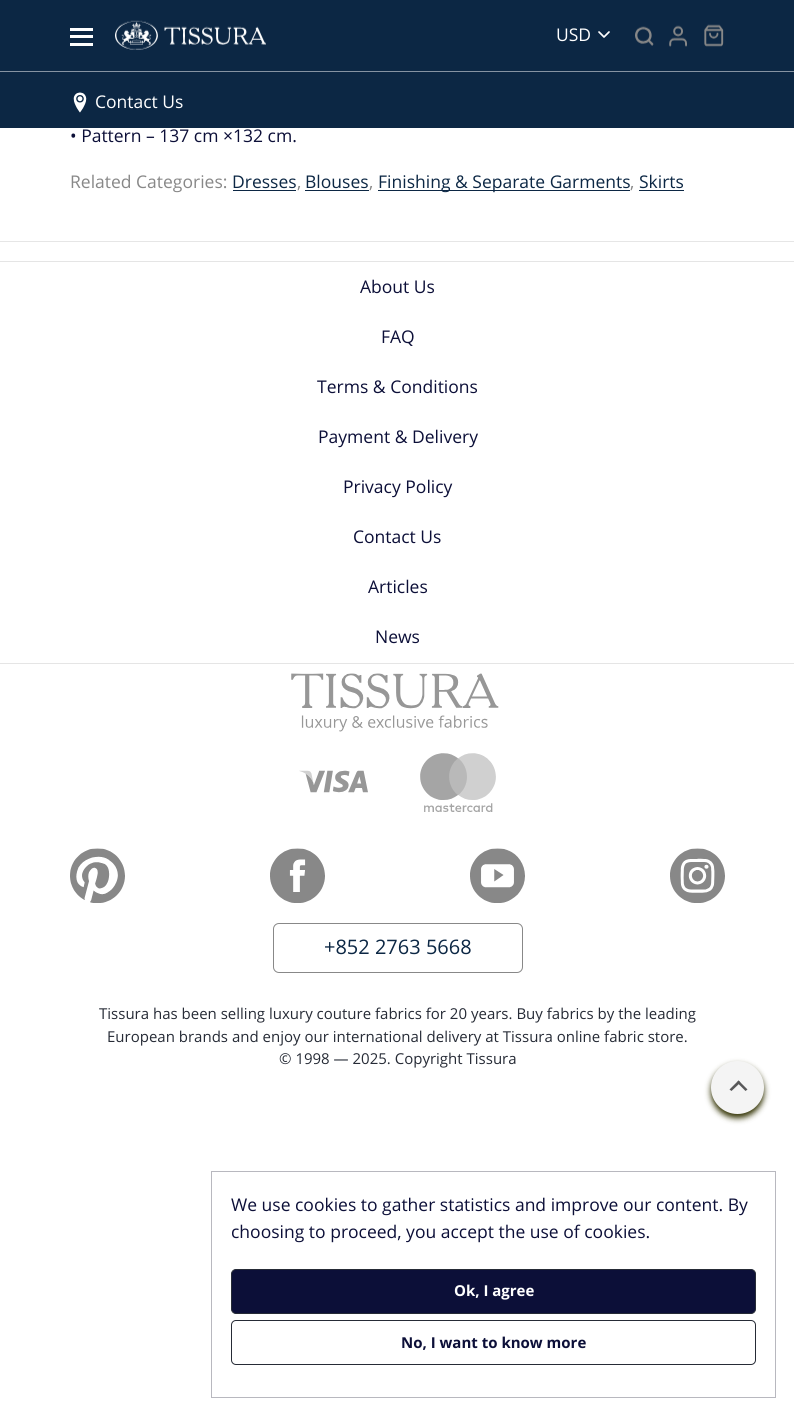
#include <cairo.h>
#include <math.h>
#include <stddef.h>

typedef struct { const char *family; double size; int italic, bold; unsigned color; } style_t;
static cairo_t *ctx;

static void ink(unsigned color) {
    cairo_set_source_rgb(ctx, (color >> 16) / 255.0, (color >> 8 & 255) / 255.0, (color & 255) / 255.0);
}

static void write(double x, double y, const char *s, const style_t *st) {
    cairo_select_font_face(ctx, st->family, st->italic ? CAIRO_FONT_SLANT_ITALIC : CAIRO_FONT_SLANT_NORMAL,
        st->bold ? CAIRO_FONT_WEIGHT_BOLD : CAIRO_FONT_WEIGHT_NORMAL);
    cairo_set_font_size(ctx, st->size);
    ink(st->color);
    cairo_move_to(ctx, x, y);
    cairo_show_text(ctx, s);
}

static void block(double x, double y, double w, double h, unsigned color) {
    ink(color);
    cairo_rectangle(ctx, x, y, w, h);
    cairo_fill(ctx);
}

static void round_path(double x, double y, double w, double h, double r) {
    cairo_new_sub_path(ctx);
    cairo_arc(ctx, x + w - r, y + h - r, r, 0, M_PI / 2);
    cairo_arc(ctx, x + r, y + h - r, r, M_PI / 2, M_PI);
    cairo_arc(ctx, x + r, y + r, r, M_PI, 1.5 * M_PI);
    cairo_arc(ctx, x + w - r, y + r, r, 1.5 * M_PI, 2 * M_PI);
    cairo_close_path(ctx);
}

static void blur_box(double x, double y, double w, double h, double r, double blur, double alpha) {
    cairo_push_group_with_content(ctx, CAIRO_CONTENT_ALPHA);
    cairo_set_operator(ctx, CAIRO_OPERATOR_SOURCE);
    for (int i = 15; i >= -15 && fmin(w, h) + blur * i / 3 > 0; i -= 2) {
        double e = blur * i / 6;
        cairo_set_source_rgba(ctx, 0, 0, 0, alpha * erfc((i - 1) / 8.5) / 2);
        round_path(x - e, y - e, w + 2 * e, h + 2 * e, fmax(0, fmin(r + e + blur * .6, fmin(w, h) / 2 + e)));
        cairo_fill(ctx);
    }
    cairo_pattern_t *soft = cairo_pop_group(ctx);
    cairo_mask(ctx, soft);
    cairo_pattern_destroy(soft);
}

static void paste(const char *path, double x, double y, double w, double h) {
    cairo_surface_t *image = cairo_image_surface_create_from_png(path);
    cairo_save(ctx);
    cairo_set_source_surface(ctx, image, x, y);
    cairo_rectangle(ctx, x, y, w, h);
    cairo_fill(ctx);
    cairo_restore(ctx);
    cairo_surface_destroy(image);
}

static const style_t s1 = {"Open Sans", 17.5, 0, 0, 0xffffff};
static const style_t s2 = {"Open Sans", 17.5, 0, 0, 0x0c0f38};
static const style_t s3 = {"Open Sans", 17.5, 0, 0, 0x888888};
static const style_t s4 = {"Open Sans", 17.5, 0, 0, 0x0c2744};
static const style_t s5 = {"Open Sans", 20, 0, 0, 0x0c2744};
static const style_t s6 = {"Open Sans", 15, 0, 0, 0x262b36};
static const style_t s7 = {"Open Sans", 15, 0, 1, 0xffffff};
static const style_t s8 = {"Open Sans", 15, 0, 1, 0x0c0f38};

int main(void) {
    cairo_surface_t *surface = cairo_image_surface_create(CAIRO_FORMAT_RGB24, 794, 1416);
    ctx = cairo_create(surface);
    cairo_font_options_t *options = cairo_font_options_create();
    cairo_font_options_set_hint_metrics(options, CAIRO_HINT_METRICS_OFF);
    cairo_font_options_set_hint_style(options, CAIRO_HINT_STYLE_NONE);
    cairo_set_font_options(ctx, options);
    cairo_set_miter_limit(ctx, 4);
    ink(0xffffff);
    cairo_paint(ctx);
    block(0, 0, 794, 128, 0x0c2744);
    block(0, 71, 794, 1, 0x8693a2);
    block(70, 28, 23, 3, 0xffffff);
    block(70, 35, 23, 3, 0xffffff);
    block(70, 43, 23, 3, 0xffffff);
    paste("pic1.png", 115, 20, 151, 30);
    write(556, 41, "USD", &s1);
    cairo_new_path(ctx);
    cairo_move_to(ctx, 599, 32);
    cairo_line_to(ctx, 604, 37);
    cairo_line_to(ctx, 609, 32);
    cairo_set_line_width(ctx, 1.7);
    cairo_set_line_cap(ctx, CAIRO_LINE_CAP_ROUND);
    cairo_set_line_join(ctx, CAIRO_LINE_JOIN_ROUND);
    cairo_stroke(ctx);
    paste("pic2.png", 635, 26, 19, 20);
    paste("pic3.png", 669, 25, 18, 22);
    paste("pic4.png", 704, 24, 20, 23);
    paste("pic5.png", 73, 92, 14, 21);
    write(95, 108, "Contact Us", &s1);
    write(70, 142, "• Pattern – 137 cm ×132 cm.", &s2);
    write(70, 188, "Related Categories:", &s3);
    write(232, 188, "Dresses", &s4);
    block(233, 190, 63, 1, 0x0c2744);
    write(297, 188, ",", &s3);
    write(305, 188, "Blouses", &s4);
    block(305, 190, 64, 1, 0x0c2744);
    write(369, 188, ",", &s3);
    block(378, 190, 252, 1, 0x0c2744);
    write(378, 188, "Finishing & Separate Garments", &s4);
    write(630, 188, ",", &s3);
    write(639, 188, "Skirts", &s4);
    block(639, 190, 45, 1, 0x0c2744);
    block(0, 241, 794, 1, 0xe6e6e6);
    block(0, 261, 794, 1, 0xe5e5e5);
    block(0, 663, 794, 1, 0xe5e5e5);
    write(360, 293, "About Us", &s2);
    write(381, 343, "FAQ", &s2);
    write(317, 393, "Terms & Conditions", &s2);
    write(318, 443, "Payment & Delivery", &s2);
    write(343, 493, "Privacy Policy", &s2);
    write(353, 543, "Contact Us", &s2);
    write(368, 593, "Articles", &s2);
    write(375, 643, "News", &s2);
    paste("pic6.png", 291, 673, 208, 59);
    paste("pic7.png", 299, 753, 197, 59);
    paste("pic8.png", 70, 848, 55, 55);
    paste("pic9.png", 270, 848, 55, 55);
    paste("pic10.png", 470, 848, 55, 55);
    paste("pic11.png", 670, 848, 55, 55);
    round_path(273.5, 923.5, 249, 49, 5.5);
    ink(0x888888);
    cairo_set_line_width(ctx, 1);
    cairo_set_line_cap(ctx, CAIRO_LINE_CAP_BUTT);
    cairo_set_line_join(ctx, CAIRO_LINE_JOIN_MITER);
    cairo_stroke(ctx);
    write(324, 954, "+852 2763 5668", &s5);
    write(99, 1019, "Tissura has been selling luxury couture fabrics for 20 years. Buy fabrics by the leading", &s6);
    write(107, 1042, "European brands and enjoy our international delivery at Tissura online fabric store.", &s6);
    write(279, 1064, "© 1998 — 2025. Copyright Tissura", &s6);
    ink(0x323202);
    blur_box(711, 1065, 53, 53, 26.5, 3, 1);
    ink(0xf4f4f4);
    cairo_arc(ctx, 737.5, 1087.5, 26.5, 0, 2 * M_PI);
    cairo_fill(ctx);
    ink(0x585859);
    cairo_new_path(ctx);
    cairo_move_to(ctx, 729.5, 1089.5);
    cairo_line_to(ctx, 738.5, 1080.5);
    cairo_line_to(ctx, 740.5, 1082.5);
    cairo_line_to(ctx, 731.5, 1091);
    cairo_close_path(ctx);
    cairo_fill(ctx);
    cairo_new_path(ctx);
    cairo_move_to(ctx, 737, 1082.5);
    cairo_line_to(ctx, 738.5, 1080.5);
    cairo_line_to(ctx, 747.5, 1089.5);
    cairo_line_to(ctx, 745.5, 1091);
    cairo_close_path(ctx);
    cairo_fill(ctx);
    cairo_rectangle(ctx, 211.5, 1171.5, 564, 226);
    ink(0xb8b8bf);
    cairo_stroke(ctx);
    write(231, 1211, "We use cookies to gather statistics and improve our content. By", &s2);
    write(231, 1238, "choosing to proceed, you accept the use of cookies.", &s2);
    round_path(231.5, 1269.5, 524, 44, 4.5);
    cairo_fill_preserve(ctx);
    ink(0x262b36);
    cairo_stroke(ctx);
    write(454, 1296, "Ok, I agree", &s7);
    round_path(231.5, 1320.5, 524, 44, 4.5);
    ink(0x262b36);
    cairo_stroke(ctx);
    write(401, 1348, "No, I want to know more", &s8);
    cairo_surface_write_to_png(surface, "screenshot.png");
    cairo_font_options_destroy(options);
    cairo_destroy(ctx);
    cairo_surface_destroy(surface);
    return 0;
}
